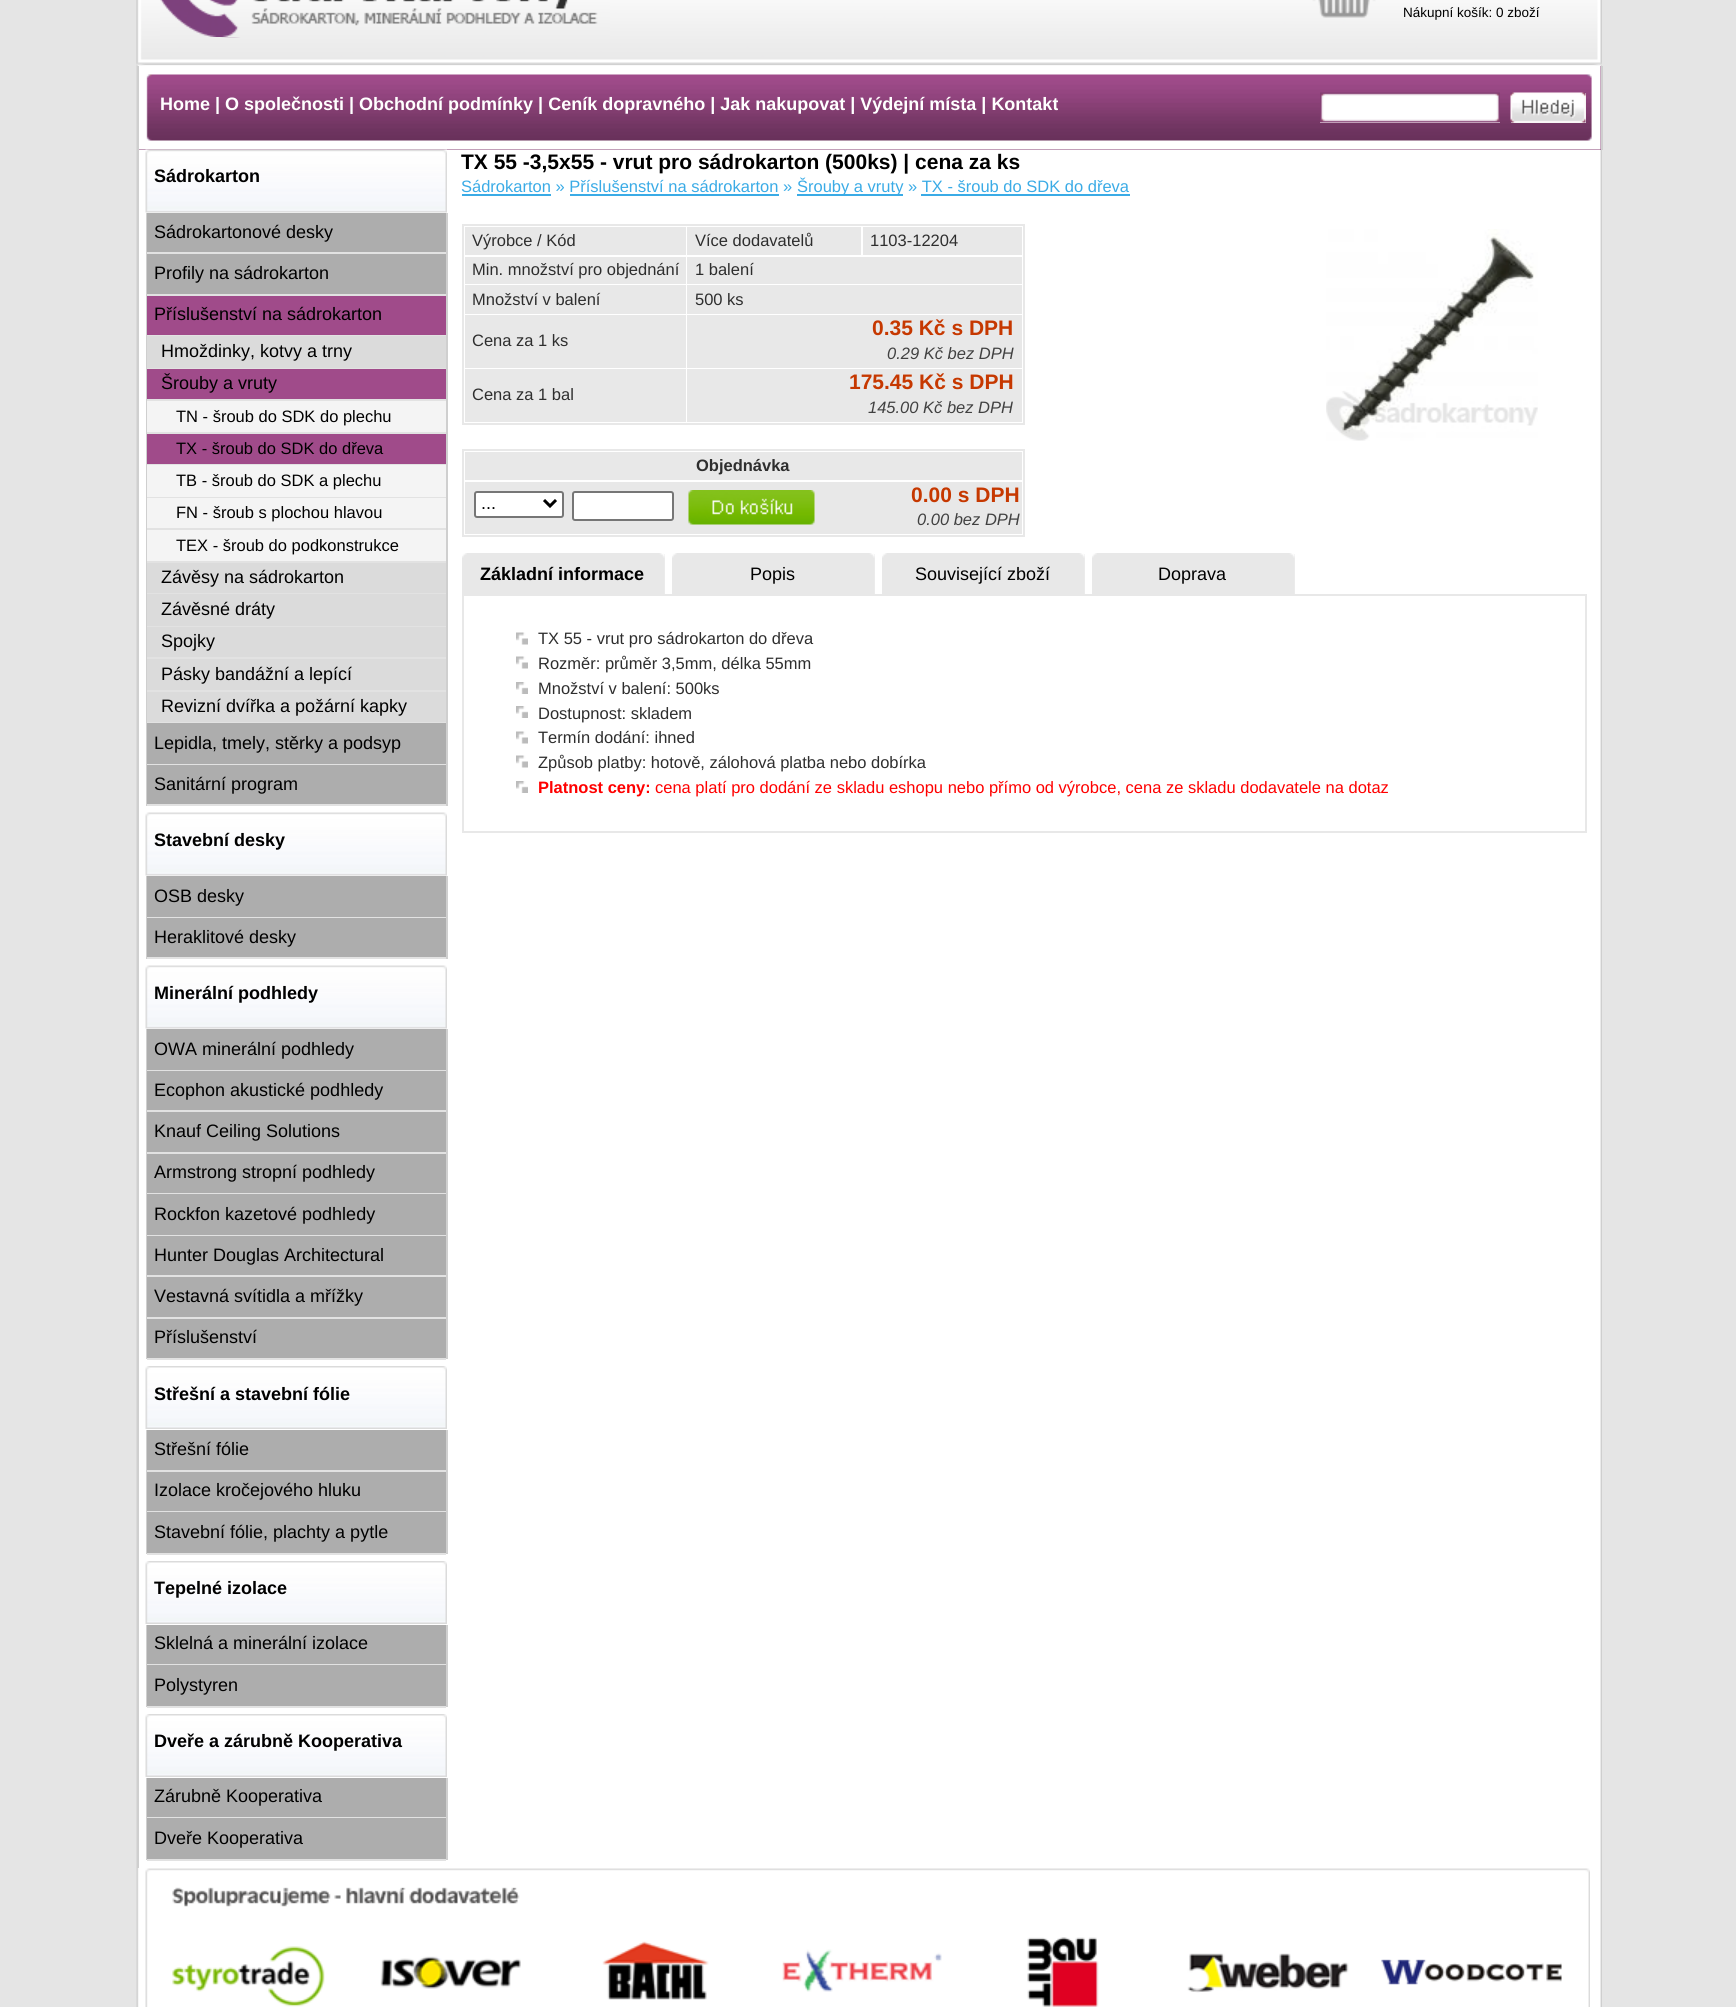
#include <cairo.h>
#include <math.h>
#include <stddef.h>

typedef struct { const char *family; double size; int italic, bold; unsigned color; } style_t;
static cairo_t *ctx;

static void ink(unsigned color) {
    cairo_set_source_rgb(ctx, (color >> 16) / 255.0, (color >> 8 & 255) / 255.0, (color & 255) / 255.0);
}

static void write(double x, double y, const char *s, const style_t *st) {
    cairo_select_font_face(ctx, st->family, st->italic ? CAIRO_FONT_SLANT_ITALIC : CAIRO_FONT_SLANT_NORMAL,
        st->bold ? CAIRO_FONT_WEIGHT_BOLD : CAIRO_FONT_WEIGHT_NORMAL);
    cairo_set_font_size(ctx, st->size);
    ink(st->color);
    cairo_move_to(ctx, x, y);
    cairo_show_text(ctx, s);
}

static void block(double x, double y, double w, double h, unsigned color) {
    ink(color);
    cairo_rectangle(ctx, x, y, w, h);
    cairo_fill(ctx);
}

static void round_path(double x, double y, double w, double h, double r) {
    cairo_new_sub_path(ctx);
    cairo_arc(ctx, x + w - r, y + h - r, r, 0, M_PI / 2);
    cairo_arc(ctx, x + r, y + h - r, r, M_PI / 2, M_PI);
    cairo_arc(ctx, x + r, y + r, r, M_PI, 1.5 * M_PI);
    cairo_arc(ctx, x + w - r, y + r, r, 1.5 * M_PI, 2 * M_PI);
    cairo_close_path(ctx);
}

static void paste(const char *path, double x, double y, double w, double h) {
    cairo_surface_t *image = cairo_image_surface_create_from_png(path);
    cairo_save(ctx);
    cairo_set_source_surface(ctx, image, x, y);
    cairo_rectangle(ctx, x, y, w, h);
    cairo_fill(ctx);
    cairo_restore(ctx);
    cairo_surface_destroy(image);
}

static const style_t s1 = {"Liberation Sans", 13.5, 0, 0, 0x000000};
static const style_t s2 = {"Liberation Sans", 18, 0, 1, 0xffffff};
static const style_t s3 = {"Liberation Sans", 18, 0, 1, 0x000000};
static const style_t s4 = {"Liberation Sans", 18, 0, 0, 0x000000};
static const style_t s5 = {"Liberation Sans", 16.5, 0, 0, 0x000000};
static const style_t s6 = {"Liberation Sans", 21, 0, 1, 0x000000};
static const style_t s7 = {"Liberation Sans", 16.5, 0, 0, 0x3aabe6};
static const style_t s8 = {"Liberation Sans", 16.5, 0, 0, 0x2e2e2e};
static const style_t s9 = {"Liberation Sans", 21, 0, 1, 0xc63800};
static const style_t s10 = {"Liberation Sans", 16.5, 1, 0, 0x414141};
static const style_t s11 = {"Liberation Sans", 16.5, 0, 1, 0x2e2e2e};
static const style_t s12 = {"Liberation Sans", 16.5, 0, 1, 0xff0000};
static const style_t s13 = {"Liberation Sans", 16.5, 0, 0, 0xff0000};

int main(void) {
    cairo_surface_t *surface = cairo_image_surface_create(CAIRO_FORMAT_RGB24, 1736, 2007);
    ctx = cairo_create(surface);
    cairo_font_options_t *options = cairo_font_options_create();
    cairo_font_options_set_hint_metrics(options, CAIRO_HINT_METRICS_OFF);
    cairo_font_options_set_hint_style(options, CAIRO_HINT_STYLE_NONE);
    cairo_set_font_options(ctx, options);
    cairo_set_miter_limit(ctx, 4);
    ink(0xe5e5e5);
    cairo_paint(ctx);
    paste("pic1.png", 136, 0, 1466, 2007);
    paste("pic2.png", 136, 0, 1466, 66);
    paste("pic3.png", 160, 0, 450, 37);
    paste("pic4.png", 1312, 0, 64, 18);
    write(1403, 17, "Nákupní košík: 0 zboží", &s1);
    block(139, 66, 1462, 84, 0x853f73);
    paste("pic5.png", 137, 65, 1464, 85);
    block(1602, 66, 1, 84, 0xcfcfcf);
    block(137, 66, 2, 1802, 0xcfcfcf);
    write(160, 110, "Home | O společnosti | Obchodní podmínky | Ceník dopravného | Jak nakupovat | Výdejní místa | Kontakt", &s2);
    block(1320, 122, 180, 1, 0xffffff);
    paste("pic6.png", 1320, 92, 180, 31);
    block(1511, 93, 75, 30, 0xefefef);
    paste("pic7.png", 1510, 92, 76, 31);
    paste("pic8.png", 145, 149, 302, 64);
    write(154, 182, "Sádrokarton", &s3);
    block(446, 213, 2, 593, 0xcfcfcf);
    block(146, 213, 1, 593, 0xcfcfcf);
    block(147, 213, 299, 39, 0xadadad);
    block(147, 252, 299, 2, 0xe2e2e2);
    write(154, 238, "Sádrokartonové desky", &s4);
    block(147, 254, 299, 40, 0xadadad);
    block(147, 294, 299, 2, 0xe2e2e2);
    write(154, 279, "Profily na sádrokarton", &s4);
    block(147, 296, 299, 39, 0xa04b8a);
    block(147, 335, 299, 1, 0xe2e2e2);
    write(154, 320, "Příslušenství na sádrokarton", &s4);
    block(147, 336, 299, 386, 0xdbdbdb);
    block(147, 368, 299, 1, 0xe2e2e2);
    write(161, 357, "Hmoždinky, kotvy a trny", &s4);
    block(147, 369, 299, 30, 0xa04b8a);
    block(147, 399, 299, 2, 0xe2e2e2);
    write(161, 389, "Šrouby a vruty", &s4);
    block(147, 401, 299, 31, 0xf4f4f4);
    block(147, 432, 299, 2, 0xe2e2e2);
    write(176, 422, "TN - šroub do SDK do plechu", &s5);
    block(147, 434, 299, 30, 0xa04b8a);
    block(147, 464, 299, 1, 0xe2e2e2);
    write(176, 454, "TX - šroub do SDK do dřeva", &s5);
    block(147, 465, 299, 32, 0xf4f4f4);
    block(147, 497, 299, 1, 0xe2e2e2);
    write(176, 486, "TB - šroub do SDK a plechu", &s5);
    block(147, 498, 299, 30, 0xf4f4f4);
    block(147, 528, 299, 2, 0xe2e2e2);
    write(176, 518, "FN - šroub s plochou hlavou", &s5);
    block(147, 530, 299, 31, 0xf4f4f4);
    block(147, 561, 299, 2, 0xe2e2e2);
    write(176, 551, "TEX - šroub do podkonstrukce", &s5);
    block(147, 593, 299, 1, 0xe2e2e2);
    write(161, 583, "Závěsy na sádrokarton", &s4);
    block(147, 626, 299, 1, 0xe2e2e2);
    write(161, 615, "Závěsné dráty", &s4);
    block(147, 657, 299, 2, 0xe2e2e2);
    write(161, 647, "Spojky", &s4);
    block(147, 690, 299, 2, 0xe2e2e2);
    write(161, 680, "Pásky bandážní a lepící", &s4);
    block(147, 722, 299, 1, 0xe2e2e2);
    write(161, 712, "Revizní dvířka a požární kapky", &s4);
    block(147, 723, 299, 41, 0xadadad);
    block(147, 764, 299, 1, 0xe2e2e2);
    write(154, 749, "Lepidla, tmely, stěrky a podsyp", &s4);
    block(147, 765, 299, 39, 0xadadad);
    block(147, 804, 299, 2, 0xe2e2e2);
    write(154, 790, "Sanitární program", &s4);
    paste("pic9.png", 145, 812, 302, 64);
    write(154, 846, "Stavební desky", &s3);
    block(446, 876, 2, 83, 0xcfcfcf);
    block(146, 876, 1, 83, 0xcfcfcf);
    block(147, 876, 299, 41, 0xadadad);
    block(147, 917, 299, 1, 0xe2e2e2);
    write(154, 902, "OSB desky", &s4);
    block(147, 918, 299, 39, 0xadadad);
    block(147, 957, 299, 2, 0xe2e2e2);
    write(154, 943, "Heraklitové desky", &s4);
    paste("pic9.png", 145, 965, 302, 64);
    write(154, 999, "Minerální podhledy", &s3);
    block(446, 1029, 2, 330, 0xcfcfcf);
    block(146, 1029, 1, 330, 0xcfcfcf);
    block(147, 1029, 299, 41, 0xadadad);
    block(147, 1070, 299, 1, 0xe2e2e2);
    write(154, 1055, "OWA minerální podhledy", &s4);
    block(147, 1071, 299, 39, 0xadadad);
    block(147, 1110, 299, 2, 0xe2e2e2);
    write(154, 1096, "Ecophon akustické podhledy", &s4);
    block(147, 1112, 299, 40, 0xadadad);
    block(147, 1152, 299, 2, 0xe2e2e2);
    write(154, 1137, "Knauf Ceiling Solutions", &s4);
    block(147, 1154, 299, 39, 0xadadad);
    block(147, 1193, 299, 1, 0xe2e2e2);
    write(154, 1178, "Armstrong stropní podhledy", &s4);
    block(147, 1194, 299, 41, 0xadadad);
    block(147, 1235, 299, 1, 0xe2e2e2);
    write(154, 1220, "Rockfon kazetové podhledy", &s4);
    block(147, 1236, 299, 39, 0xadadad);
    block(147, 1275, 299, 2, 0xe2e2e2);
    write(154, 1261, "Hunter Douglas Architectural", &s4);
    block(147, 1277, 299, 40, 0xadadad);
    block(147, 1317, 299, 2, 0xe2e2e2);
    write(154, 1302, "Vestavná svítidla a mřížky", &s4);
    block(147, 1319, 299, 39, 0xadadad);
    block(147, 1358, 299, 2, 0xe2e2e2);
    write(154, 1343, "Příslušenství", &s4);
    paste("pic10.png", 145, 1366, 302, 63);
    write(154, 1400, "Střešní a stavební fólie", &s3);
    block(446, 1430, 2, 124, 0xcfcfcf);
    block(146, 1430, 1, 124, 0xcfcfcf);
    block(147, 1430, 299, 40, 0xadadad);
    block(147, 1470, 299, 2, 0xe2e2e2);
    write(154, 1455, "Střešní fólie", &s4);
    block(147, 1472, 299, 39, 0xadadad);
    block(147, 1511, 299, 1, 0xe2e2e2);
    write(154, 1496, "Izolace kročejového hluku", &s4);
    block(147, 1512, 299, 41, 0xadadad);
    block(147, 1553, 299, 2, 0xe2e2e2);
    write(154, 1538, "Stavební fólie, plachty a pytle", &s4);
    paste("pic10.png", 145, 1561, 302, 63);
    write(154, 1594, "Tepelné izolace", &s3);
    block(446, 1625, 2, 82, 0xcfcfcf);
    block(146, 1625, 1, 82, 0xcfcfcf);
    block(147, 1625, 299, 39, 0xadadad);
    block(147, 1664, 299, 1, 0xe2e2e2);
    write(154, 1649, "Sklelná a minerální izolace", &s4);
    block(147, 1665, 299, 41, 0xadadad);
    block(147, 1706, 299, 2, 0xe2e2e2);
    write(154, 1691, "Polystyren", &s4);
    paste("pic10.png", 145, 1714, 302, 63);
    write(154, 1747, "Dveře a zárubně Kooperativa", &s3);
    block(446, 1778, 2, 82, 0xcfcfcf);
    block(146, 1778, 1, 82, 0xcfcfcf);
    block(147, 1778, 299, 39, 0xadadad);
    block(147, 1817, 299, 1, 0xe2e2e2);
    write(154, 1802, "Zárubně Kooperativa", &s4);
    block(147, 1818, 299, 41, 0xadadad);
    block(147, 1859, 299, 2, 0xe2e2e2);
    write(154, 1844, "Dveře Kooperativa", &s4);
    write(461, 169, "TX 55 -3,5x55 - vrut pro sádrokarton (500ks) | cena za ks", &s6);
    write(461, 192, "Sádrokarton » Příslušenství na sádrokarton »", &s7);
    block(462, 194, 89, 2, 0x3aabe6);
    block(797, 194, 106, 2, 0x3aabe6);
    write(797, 192, "Šrouby a vruty » TX - šroub do SDK do dřeva", &s7);
    block(570, 194, 209, 2, 0x3aabe6);
    block(921, 194, 209, 2, 0x3aabe6);
    cairo_rectangle(ctx, 463, 225, 561, 199);
    ink(0xe8e8e8);
    cairo_stroke(ctx);
    block(465, 227, 221, 28, 0xe8e8e8);
    write(472, 246, "Výrobce / Kód", &s8);
    block(687, 227, 174, 28, 0xe8e8e8);
    write(695, 246, "Více dodavatelů", &s8);
    block(863, 227, 159, 28, 0xe8e8e8);
    write(870, 246, "1103-12204", &s8);
    block(465, 257, 221, 27, 0xe8e8e8);
    write(472, 275, "Min. množství pro objednání", &s8);
    block(687, 257, 335, 27, 0xe8e8e8);
    write(695, 275, "1 balení", &s8);
    block(465, 285, 221, 29, 0xe8e8e8);
    write(472, 305, "Množství v balení", &s8);
    block(687, 285, 335, 29, 0xe8e8e8);
    write(695, 305, "500 ks", &s8);
    block(465, 315, 221, 53, 0xe8e8e8);
    write(472, 346, "Cena za 1 ks", &s8);
    block(687, 315, 335, 53, 0xe8e8e8);
    write(872, 335, "0.35 Kč s DPH", &s9);
    write(887, 359, "0.29 Kč bez DPH", &s10);
    block(465, 369, 221, 53, 0xe8e8e8);
    write(472, 400, "Cena za 1 bal", &s8);
    block(687, 369, 335, 53, 0xe8e8e8);
    write(849, 389, "175.45 Kč s DPH", &s9);
    write(868, 413, "145.00 Kč bez DPH", &s10);
    paste("pic11.png", 1326, 229, 212, 212);
    cairo_rectangle(ctx, 463, 450, 561, 86);
    ink(0xe8e8e8);
    cairo_stroke(ctx);
    block(465, 452, 557, 28, 0xe8e8e8);
    write(696, 471, "Objednávka", &s11);
    block(465, 482, 557, 52, 0xe8e8e8);
    ink(0xffffff);
    round_path(475, 492, 88, 25, 2);
    cairo_fill_preserve(ctx);
    ink(0x767676);
    cairo_stroke(ctx);
    cairo_new_path(ctx);
    cairo_move_to(ctx, 544, 500);
    cairo_line_to(ctx, 550, 506);
    cairo_line_to(ctx, 556, 500);
    ink(0x000000);
    cairo_set_line_width(ctx, 3);
    cairo_stroke(ctx);
    write(481, 509, "...", &s4);
    ink(0xffffff);
    round_path(573, 492, 100, 28, 2);
    cairo_fill_preserve(ctx);
    ink(0x767676);
    cairo_set_line_width(ctx, 2);
    cairo_stroke(ctx);
    paste("pic12.png", 688, 490, 127, 35);
    write(911, 502, "0.00 s DPH", &s9);
    write(917, 525, "0.00 bez DPH", &s10);
    block(664, 554, 1, 40, 0xefefef);
    paste("pic13.png", 462, 553, 203, 41);
    write(480, 580, "Základní informace", &s3);
    block(874, 554, 1, 40, 0xefefef);
    paste("pic14.png", 672, 553, 203, 41);
    write(750, 580, "Popis", &s4);
    block(1084, 554, 1, 40, 0xefefef);
    paste("pic14.png", 882, 553, 203, 41);
    write(915, 580, "Související zboží", &s4);
    block(1294, 554, 1, 40, 0xefefef);
    paste("pic13.png", 1092, 553, 203, 41);
    write(1158, 580, "Doprava", &s4);
    cairo_rectangle(ctx, 463, 595, 1123, 237);
    ink(0xe8e8e8);
    cairo_stroke(ctx);
    paste("pic15.png", 516, 632, 12, 13);
    write(538, 644, "TX 55 - vrut pro sádrokarton do dřeva", &s8);
    paste("pic15.png", 516, 656, 12, 13);
    write(538, 669, "Rozměr: průměr 3,5mm, délka 55mm", &s8);
    paste("pic16.png", 516, 682, 12, 12);
    write(538, 694, "Množství v balení: 500ks", &s8);
    paste("pic16.png", 516, 706, 12, 12);
    write(538, 719, "Dostupnost: skladem", &s8);
    paste("pic15.png", 516, 731, 12, 13);
    write(538, 743, "Termín dodání: ihned", &s8);
    paste("pic15.png", 516, 755, 12, 13);
    write(538, 768, "Způsob platby: hotově, zálohová platba nebo dobírka", &s8);
    paste("pic16.png", 516, 781, 12, 12);
    write(538, 793, "Platnost ceny:", &s12);
    write(655, 793, "cena platí pro dodání ze skladu eshopu nebo přímo od výrobce, cena ze skladu dodavatele na dotaz", &s13);
    paste("pic17.png", 145, 1868, 1445, 139);
    paste("pic18.png", 172, 1946, 153, 61);
    paste("pic19.png", 380, 1956, 141, 33);
    paste("pic20.png", 602, 1941, 107, 59);
    paste("pic21.png", 782, 1949, 160, 43);
    paste("pic22.png", 1027, 1937, 72, 70);
    paste("pic23.png", 1187, 1953, 162, 40);
    paste("pic24.png", 1381, 1959, 181, 26);
    cairo_surface_write_to_png(surface, "screenshot.png");
    cairo_font_options_destroy(options);
    cairo_destroy(ctx);
    cairo_surface_destroy(surface);
    return 0;
}
